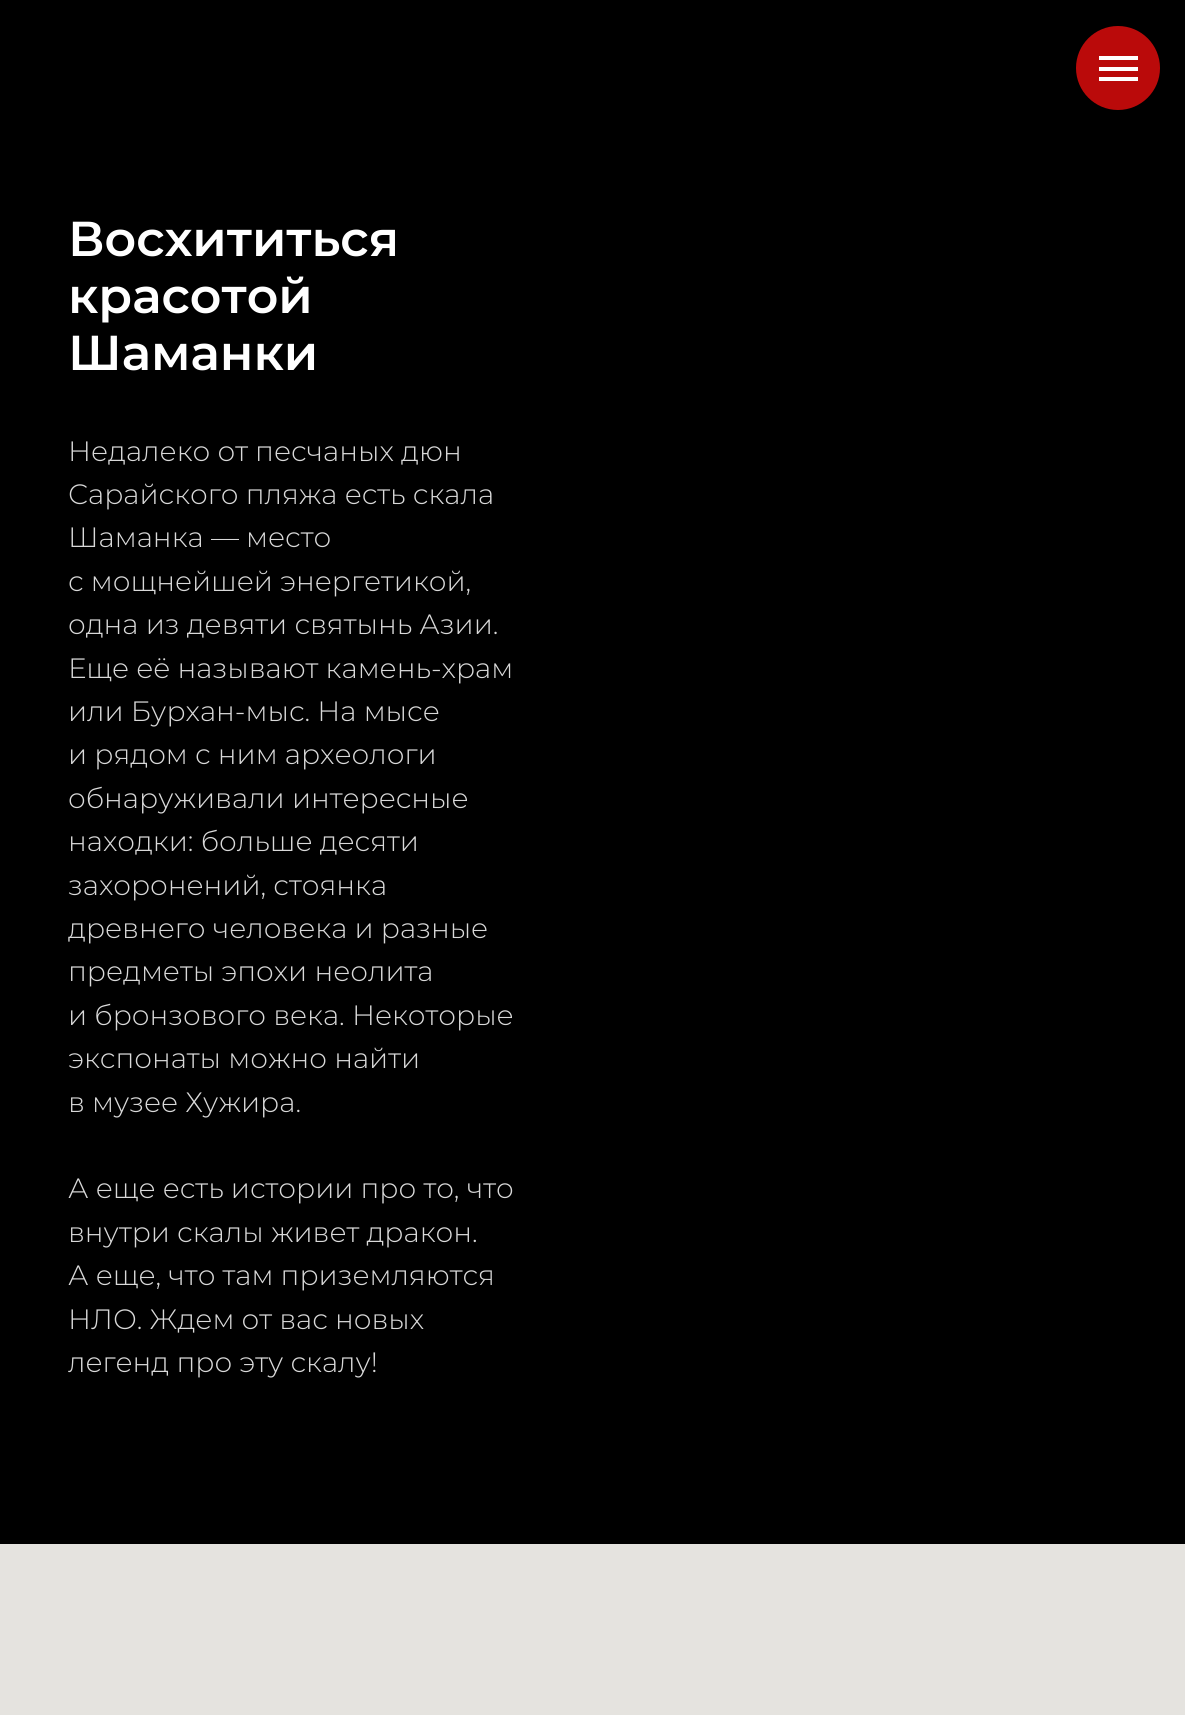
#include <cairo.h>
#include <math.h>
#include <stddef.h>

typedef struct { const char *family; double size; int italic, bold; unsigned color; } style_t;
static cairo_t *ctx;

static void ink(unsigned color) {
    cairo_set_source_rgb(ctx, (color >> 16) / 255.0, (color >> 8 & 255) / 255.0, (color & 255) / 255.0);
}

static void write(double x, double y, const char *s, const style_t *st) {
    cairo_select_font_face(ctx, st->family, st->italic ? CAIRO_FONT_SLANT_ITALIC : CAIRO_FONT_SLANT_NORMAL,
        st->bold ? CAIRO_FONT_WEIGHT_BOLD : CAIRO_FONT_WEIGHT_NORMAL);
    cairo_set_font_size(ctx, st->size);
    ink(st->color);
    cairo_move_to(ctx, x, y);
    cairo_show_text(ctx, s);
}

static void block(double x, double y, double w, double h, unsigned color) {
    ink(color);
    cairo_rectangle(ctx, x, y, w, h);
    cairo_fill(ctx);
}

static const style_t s1 = {"Montserrat SemiBold", 49, 0, 0, 0xffffff};
static const style_t s2 = {"Montserrat Light", 28, 0, 0, 0xd9d9d9};

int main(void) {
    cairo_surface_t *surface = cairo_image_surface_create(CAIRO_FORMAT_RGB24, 1185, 1715);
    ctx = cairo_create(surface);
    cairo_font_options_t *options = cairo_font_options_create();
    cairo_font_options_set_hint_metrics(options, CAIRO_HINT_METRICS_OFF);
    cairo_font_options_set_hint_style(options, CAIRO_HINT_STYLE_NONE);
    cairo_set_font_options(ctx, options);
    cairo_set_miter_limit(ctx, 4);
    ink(0x000000);
    cairo_paint(ctx);
    ink(0xba0a0a);
    cairo_arc(ctx, 1118, 68, 42, 0, 2 * M_PI);
    cairo_fill(ctx);
    block(1099, 56, 39, 4, 0xffffff);
    block(1099, 67, 39, 4, 0xffffff);
    block(1099, 77, 39, 4, 0xffffff);
    write(68, 256, "Восхититься", &s1);
    write(68, 313, "красотой", &s1);
    write(68, 370, "Шаманки", &s1);
    write(68, 461, "Недалеко от песчаных дюн", &s2);
    write(68, 504, "Сарайского пляжа есть скала", &s2);
    write(68, 547, "Шаманка — место", &s2);
    write(68, 591, "с мощнейшей энергетикой,", &s2);
    write(68, 634, "одна из девяти святынь Азии.", &s2);
    write(68, 678, "Еще её называют камень-храм", &s2);
    write(68, 721, "или Бурхан-мыс. На мысе", &s2);
    write(68, 764, "и рядом с ним археологи", &s2);
    write(68, 808, "обнаруживали интересные", &s2);
    write(68, 851, "находки: больше десяти", &s2);
    write(68, 895, "захоронений, стоянка", &s2);
    write(68, 938, "древнего человека и разные", &s2);
    write(68, 981, "предметы эпохи неолита", &s2);
    write(68, 1025, "и бронзового века. Некоторые", &s2);
    write(68, 1068, "экспонаты можно найти", &s2);
    write(68, 1112, "в музее Хужира.", &s2);
    write(68, 1198, "А еще есть истории про то, что", &s2);
    write(68, 1242, "внутри скалы живет дракон.", &s2);
    write(68, 1285, "А еще, что там приземляются", &s2);
    write(68, 1329, "НЛО. Ждем от вас новых", &s2);
    write(68, 1372, "легенд про эту скалу!", &s2);
    block(0, 1544, 1185, 171, 0xe5e3df);
    cairo_surface_write_to_png(surface, "screenshot.png");
    cairo_font_options_destroy(options);
    cairo_destroy(ctx);
    cairo_surface_destroy(surface);
    return 0;
}
